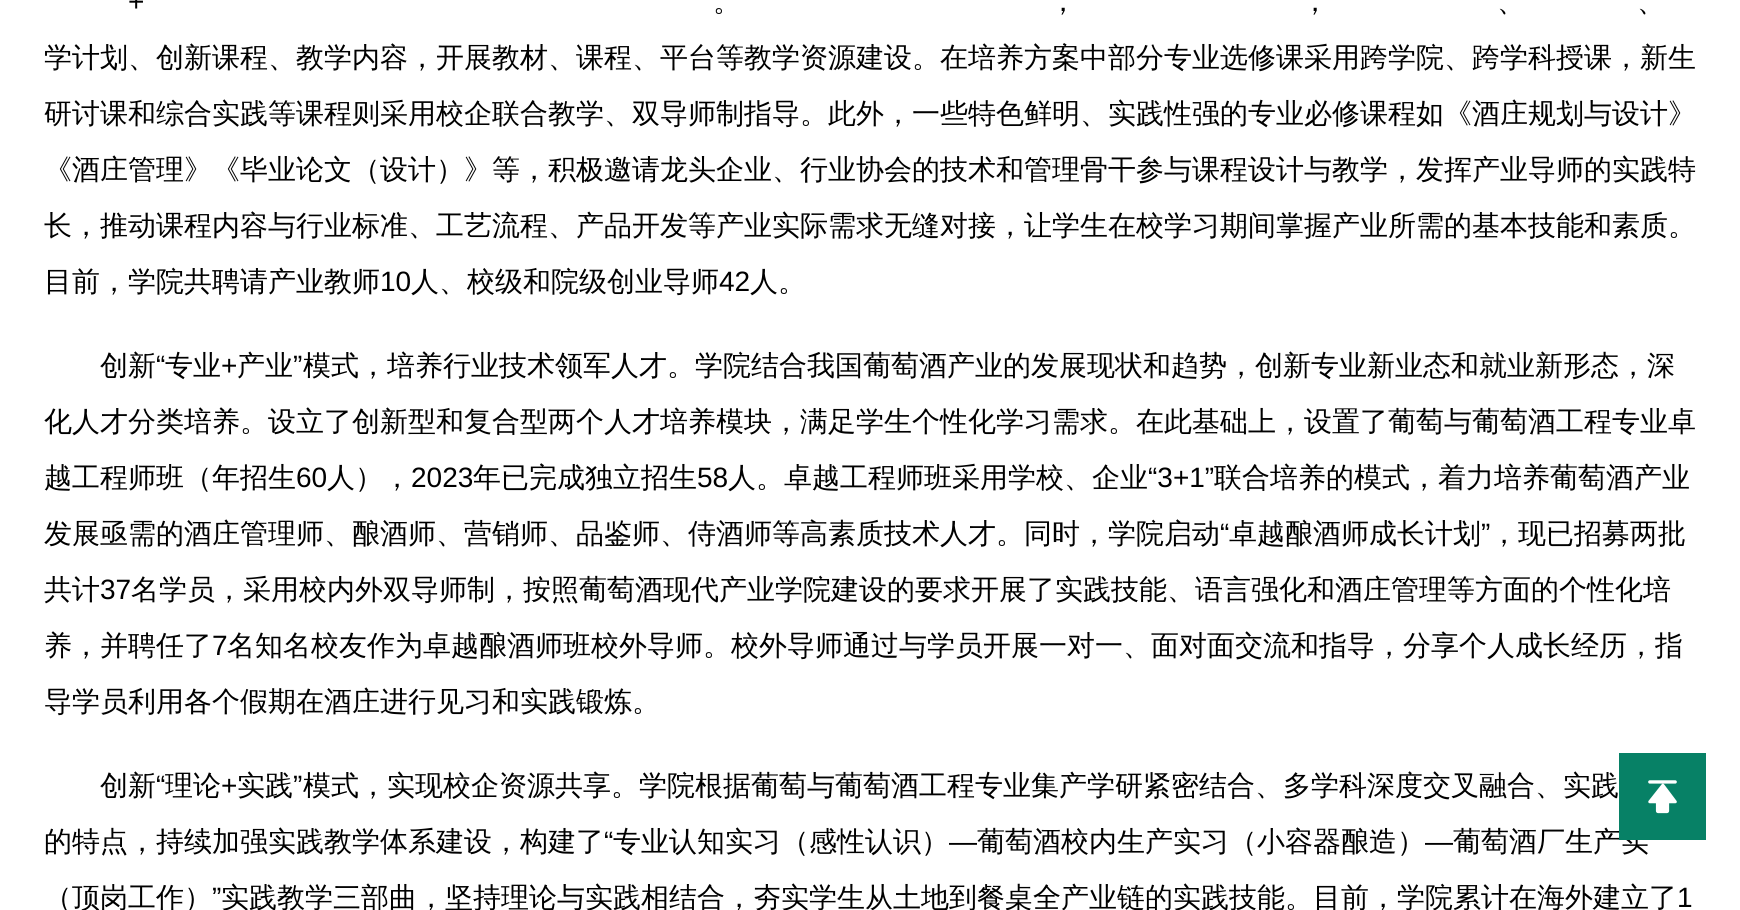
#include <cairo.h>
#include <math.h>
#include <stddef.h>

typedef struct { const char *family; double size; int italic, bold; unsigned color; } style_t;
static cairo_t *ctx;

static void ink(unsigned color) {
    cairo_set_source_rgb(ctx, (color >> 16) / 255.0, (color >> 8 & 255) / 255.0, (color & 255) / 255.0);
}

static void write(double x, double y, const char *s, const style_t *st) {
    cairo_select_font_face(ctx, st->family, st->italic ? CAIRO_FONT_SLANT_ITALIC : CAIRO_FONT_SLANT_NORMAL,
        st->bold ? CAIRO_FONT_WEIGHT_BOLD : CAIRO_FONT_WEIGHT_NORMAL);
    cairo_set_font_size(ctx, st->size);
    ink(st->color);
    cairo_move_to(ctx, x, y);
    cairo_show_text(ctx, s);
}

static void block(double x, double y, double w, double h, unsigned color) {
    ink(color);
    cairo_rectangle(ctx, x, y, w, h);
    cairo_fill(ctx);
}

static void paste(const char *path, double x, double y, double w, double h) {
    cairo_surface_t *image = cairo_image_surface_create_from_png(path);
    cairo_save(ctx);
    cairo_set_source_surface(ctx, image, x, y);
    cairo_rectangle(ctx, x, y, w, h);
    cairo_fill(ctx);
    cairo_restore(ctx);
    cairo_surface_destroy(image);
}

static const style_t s1 = {"Liberation Sans", 28, 0, 0, 0x000000};
static const style_t s2 = {"WenQuanYi Zen Hei Medium", 28, 0, 0, 0x000000};

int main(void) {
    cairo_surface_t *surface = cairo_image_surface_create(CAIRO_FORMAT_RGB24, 1740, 910);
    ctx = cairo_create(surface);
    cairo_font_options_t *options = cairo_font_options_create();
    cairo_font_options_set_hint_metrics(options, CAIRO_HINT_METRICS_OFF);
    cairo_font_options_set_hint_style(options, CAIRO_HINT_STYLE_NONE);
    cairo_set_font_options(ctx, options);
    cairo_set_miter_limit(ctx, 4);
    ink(0xffffff);
    cairo_paint(ctx);
    write(128, 11, "+", &s1);
    write(713, 11, "。", &s2);
    write(1049, 11, "，", &s2);
    write(1301, 11, "，", &s2);
    write(1497, 11, "、", &s2);
    write(1637, 11, "、", &s2);
    write(44, 67, "学计划、创新课程、教学内容，开展教材、课程、平台等教学资源建设。在培养方案中部分专业选修课采用跨学院、跨学科授课，新生", &s2);
    write(44, 123, "研讨课和综合实践等课程则采用校企联合教学、双导师制指导。此外，一些特色鲜明、实践性强的专业必修课程如《酒庄规划与设计》", &s2);
    write(44, 179, "《酒庄管理》《毕业论文（设计）》等，积极邀请龙头企业、行业协会的技术和管理骨干参与课程设计与教学，发挥产业导师的实践特", &s2);
    write(44, 235, "长，推动课程内容与行业标准、工艺流程、产品开发等产业实际需求无缝对接，让学生在校学习期间掌握产业所需的基本技能和素质。", &s2);
    write(44, 291, "目前，学院共聘请产业教师", &s2);
    write(380, 291, "10", &s1);
    write(411, 291, "人、校级和院级创业导师", &s2);
    write(719, 291, "42", &s1);
    write(750, 291, "人。", &s2);
    write(100, 375, "创新", &s2);
    write(156, 375, "“", &s1);
    write(165, 375, "专业", &s2);
    write(221, 375, "+", &s1);
    write(237, 375, "产业", &s2);
    write(293, 375, "”", &s1);
    write(303, 375, "模式，培养行业技术领军人才。学院结合我国葡萄酒产业的发展现状和趋势，创新专业新业态和就业新形态，深", &s2);
    write(44, 431, "化人才分类培养。设立了创新型和复合型两个人才培养模块，满足学生个性化学习需求。在此基础上，设置了葡萄与葡萄酒工程专业卓", &s2);
    write(44, 487, "越工程师班（年招生", &s2);
    write(296, 487, "60", &s1);
    write(327, 487, "人），", &s2);
    write(411, 487, "2023", &s1);
    write(473, 487, "年已完成独立招生", &s2);
    write(697, 487, "58", &s1);
    write(728, 487, "人。卓越工程师班采用学校、企业", &s2);
    write(1148, 487, "“3+1”", &s1);
    write(1214, 487, "联合培养的模式，着力培养葡萄酒产业", &s2);
    write(44, 543, "发展亟需的酒庄管理师、酿酒师、营销师、品鉴师、侍酒师等高素质技术人才。同时，学院启动", &s2);
    write(1220, 543, "“", &s1);
    write(1229, 543, "卓越酿酒师成长计划", &s2);
    write(1481, 543, "”", &s1);
    write(1490, 543, "，现已招募两批", &s2);
    write(44, 599, "共计", &s2);
    write(100, 599, "37", &s1);
    write(131, 599, "名学员，采用校内外双导师制，按照葡萄酒现代产业学院建设的要求开展了实践技能、语言强化和酒庄管理等方面的个性化培", &s2);
    write(44, 655, "养，并聘任了", &s2);
    write(212, 655, "7", &s1);
    write(227, 655, "名知名校友作为卓越酿酒师班校外导师。校外导师通过与学员开展一对一、面对面交流和指导，分享个人成长经历，指", &s2);
    write(44, 711, "导学员利用各个假期在酒庄进行见习和实践锻炼。", &s2);
    write(100, 795, "创新", &s2);
    write(156, 795, "“", &s1);
    write(165, 795, "理论", &s2);
    write(221, 795, "+", &s1);
    write(237, 795, "实践", &s2);
    write(293, 795, "”", &s1);
    write(303, 795, "模式，实现校企资源共享。学院根据葡萄与葡萄酒工程专业集产学研紧密结合、多学科深度交叉融合、实践", &s2);
    write(44, 851, "的特点，持续加强实践教学体系建设，构建了", &s2);
    write(604, 851, "“", &s1);
    write(613, 851, "专业认知实习（感性认识）", &s2);
    write(949, 851, "—", &s1);
    write(977, 851, "葡萄酒校内生产实习（小容器酿造）", &s2);
    write(1425, 851, "—", &s1);
    write(1453, 851, "葡萄酒厂生产实", &s2);
    write(44, 907, "（顶岗工作）", &s2);
    write(212, 907, "”", &s1);
    write(221, 907, "实践教学三部曲，坚持理论与实践相结合，夯实学生从土地到餐桌全产业链的实践技能。目前，学院累计在海外建立了", &s2);
    write(1677, 907, "1", &s1);
    block(1619, 753, 87, 87, 0x078166);
    paste("pic1.png", 1648, 780, 29, 34);
    cairo_surface_write_to_png(surface, "screenshot.png");
    cairo_font_options_destroy(options);
    cairo_destroy(ctx);
    cairo_surface_destroy(surface);
    return 0;
}
